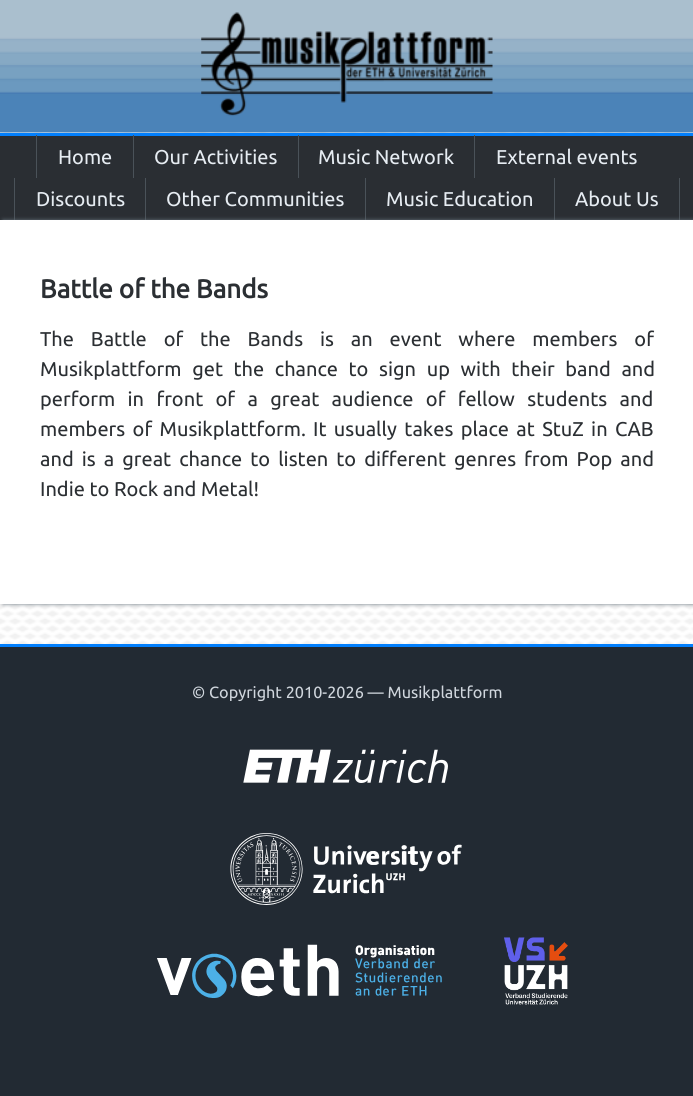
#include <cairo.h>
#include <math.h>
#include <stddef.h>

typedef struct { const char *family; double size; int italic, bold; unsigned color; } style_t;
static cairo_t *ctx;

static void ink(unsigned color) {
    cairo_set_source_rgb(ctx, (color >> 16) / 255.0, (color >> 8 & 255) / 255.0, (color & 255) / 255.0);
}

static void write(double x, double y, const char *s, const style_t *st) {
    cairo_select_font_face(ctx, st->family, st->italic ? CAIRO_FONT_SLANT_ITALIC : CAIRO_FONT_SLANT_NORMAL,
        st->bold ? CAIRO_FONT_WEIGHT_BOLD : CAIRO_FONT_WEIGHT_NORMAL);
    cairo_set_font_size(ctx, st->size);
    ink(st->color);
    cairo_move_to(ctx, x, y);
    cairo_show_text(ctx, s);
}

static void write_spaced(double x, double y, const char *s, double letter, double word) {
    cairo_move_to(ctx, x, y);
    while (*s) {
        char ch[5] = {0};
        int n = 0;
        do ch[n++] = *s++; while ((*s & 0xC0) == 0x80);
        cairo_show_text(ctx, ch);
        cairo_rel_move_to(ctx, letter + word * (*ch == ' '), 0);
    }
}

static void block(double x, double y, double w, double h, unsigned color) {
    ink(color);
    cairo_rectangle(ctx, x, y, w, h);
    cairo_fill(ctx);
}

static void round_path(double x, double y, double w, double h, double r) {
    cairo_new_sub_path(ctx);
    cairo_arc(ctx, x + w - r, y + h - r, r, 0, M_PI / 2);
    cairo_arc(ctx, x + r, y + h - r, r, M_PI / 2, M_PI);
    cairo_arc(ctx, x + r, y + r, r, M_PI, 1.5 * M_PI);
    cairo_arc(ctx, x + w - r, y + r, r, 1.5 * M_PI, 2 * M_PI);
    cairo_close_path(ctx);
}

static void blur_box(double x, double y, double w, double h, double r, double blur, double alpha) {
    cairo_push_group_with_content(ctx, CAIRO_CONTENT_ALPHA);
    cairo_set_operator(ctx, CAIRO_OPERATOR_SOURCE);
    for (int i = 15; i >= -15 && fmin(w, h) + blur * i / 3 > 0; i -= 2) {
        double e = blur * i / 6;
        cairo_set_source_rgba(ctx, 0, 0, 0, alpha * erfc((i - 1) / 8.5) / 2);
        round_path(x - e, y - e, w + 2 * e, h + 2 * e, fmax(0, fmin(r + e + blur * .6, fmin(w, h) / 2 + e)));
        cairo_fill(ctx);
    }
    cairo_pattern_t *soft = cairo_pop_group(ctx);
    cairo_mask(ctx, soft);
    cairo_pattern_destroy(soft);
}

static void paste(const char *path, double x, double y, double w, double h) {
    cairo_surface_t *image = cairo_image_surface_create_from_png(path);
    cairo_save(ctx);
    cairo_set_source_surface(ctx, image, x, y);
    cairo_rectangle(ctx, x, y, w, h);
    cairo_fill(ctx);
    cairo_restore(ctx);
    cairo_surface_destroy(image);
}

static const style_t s1 = {"Ubuntu", 20, 0, 0, 0xe6ecf2};
static const style_t s2 = {"Ubuntu", 26, 0, 1, 0x2b2f33};
static const style_t s3 = {"Ubuntu", 20, 0, 0, 0x2b2f33};
static const style_t s4 = {"Ubuntu", 16.25, 0, 0, 0xd0d6dd};

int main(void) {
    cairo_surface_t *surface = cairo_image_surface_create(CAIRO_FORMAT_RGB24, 693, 1096);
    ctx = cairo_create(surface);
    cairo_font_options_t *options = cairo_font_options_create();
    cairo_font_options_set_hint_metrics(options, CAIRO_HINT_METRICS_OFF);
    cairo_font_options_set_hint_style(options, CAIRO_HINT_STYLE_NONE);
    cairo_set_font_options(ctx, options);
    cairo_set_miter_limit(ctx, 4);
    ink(0xffffff);
    cairo_paint(ctx);
    paste("pic1.png", 0, 132, 693, 512);
    paste("pic2.png", 0, 0, 693, 133);
    block(0, 136, 693, 84, 0x2a2e33);
    block(0, 133, 693, 3, 0x027ffc);
    block(36, 135, 1, 43, 0x4a5259);
    write(58, 164, "Home", &s1);
    block(133, 135, 1, 43, 0x4a5259);
    write(154, 164, "Our Activities", &s1);
    block(298, 135, 1, 43, 0x4a5259);
    write(318, 164, "Music Network", &s1);
    block(474, 135, 1, 43, 0x4a5259);
    write(496, 164, "External events", &s1);
    block(14, 178, 1, 42, 0x4a5259);
    write(36, 206, "Discounts", &s1);
    block(145, 178, 1, 42, 0x4a5259);
    write(166, 206, "Other Communities", &s1);
    block(365, 178, 1, 42, 0x4a5259);
    write(386, 206, "Music Education", &s1);
    block(679, 178, 1, 42, 0x4a5259);
    block(554, 178, 1, 42, 0x4a5259);
    write(575, 206, "About Us", &s1);
    ink(0x66707a);
    blur_box(3, 220, 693, 384, 0, 2, 1);
    block(0, 220, 693, 384, 0xffffff);
    write(40, 298, "Battle of the Bands", &s2);
    cairo_select_font_face(ctx, "Ubuntu", CAIRO_FONT_SLANT_NORMAL, CAIRO_FONT_WEIGHT_NORMAL);
    cairo_set_font_size(ctx, 20);
    write_spaced(40, 346, "The Battle of the Bands is an event where members of", 0, 12.25);
    write_spaced(40, 376, "Musikplattform get the chance to sign up with their band and", 0, 6);
    write_spaced(40, 406, "perform in front of a great audience of fellow students and", 0, 7.75);
    write_spaced(40, 436, "members of Musikplattform.", 0, 2.75);
    write_spaced(313, 436, "It usually takes place at StuZ in CAB", 0, 2.75);
    write_spaced(40, 466, "and is a great chance to listen to different genres from Pop and", 0, 3.4);
    write(40, 496, "Indie to Rock and Metal!", &s3);
    block(0, 647, 693, 449, 0x222a33);
    block(0, 644, 693, 3, 0x027ffc);
    write(192, 698, "© Copyright 2010-2026 — Musikplattform", &s4);
    paste("pic3.png", 243, 749, 205, 34);
    paste("pic4.png", 230, 833, 232, 72);
    paste("pic5.png", 157, 944, 285, 54);
    paste("pic6.png", 504, 937, 64, 68);
    cairo_surface_write_to_png(surface, "screenshot.png");
    cairo_font_options_destroy(options);
    cairo_destroy(ctx);
    cairo_surface_destroy(surface);
    return 0;
}
